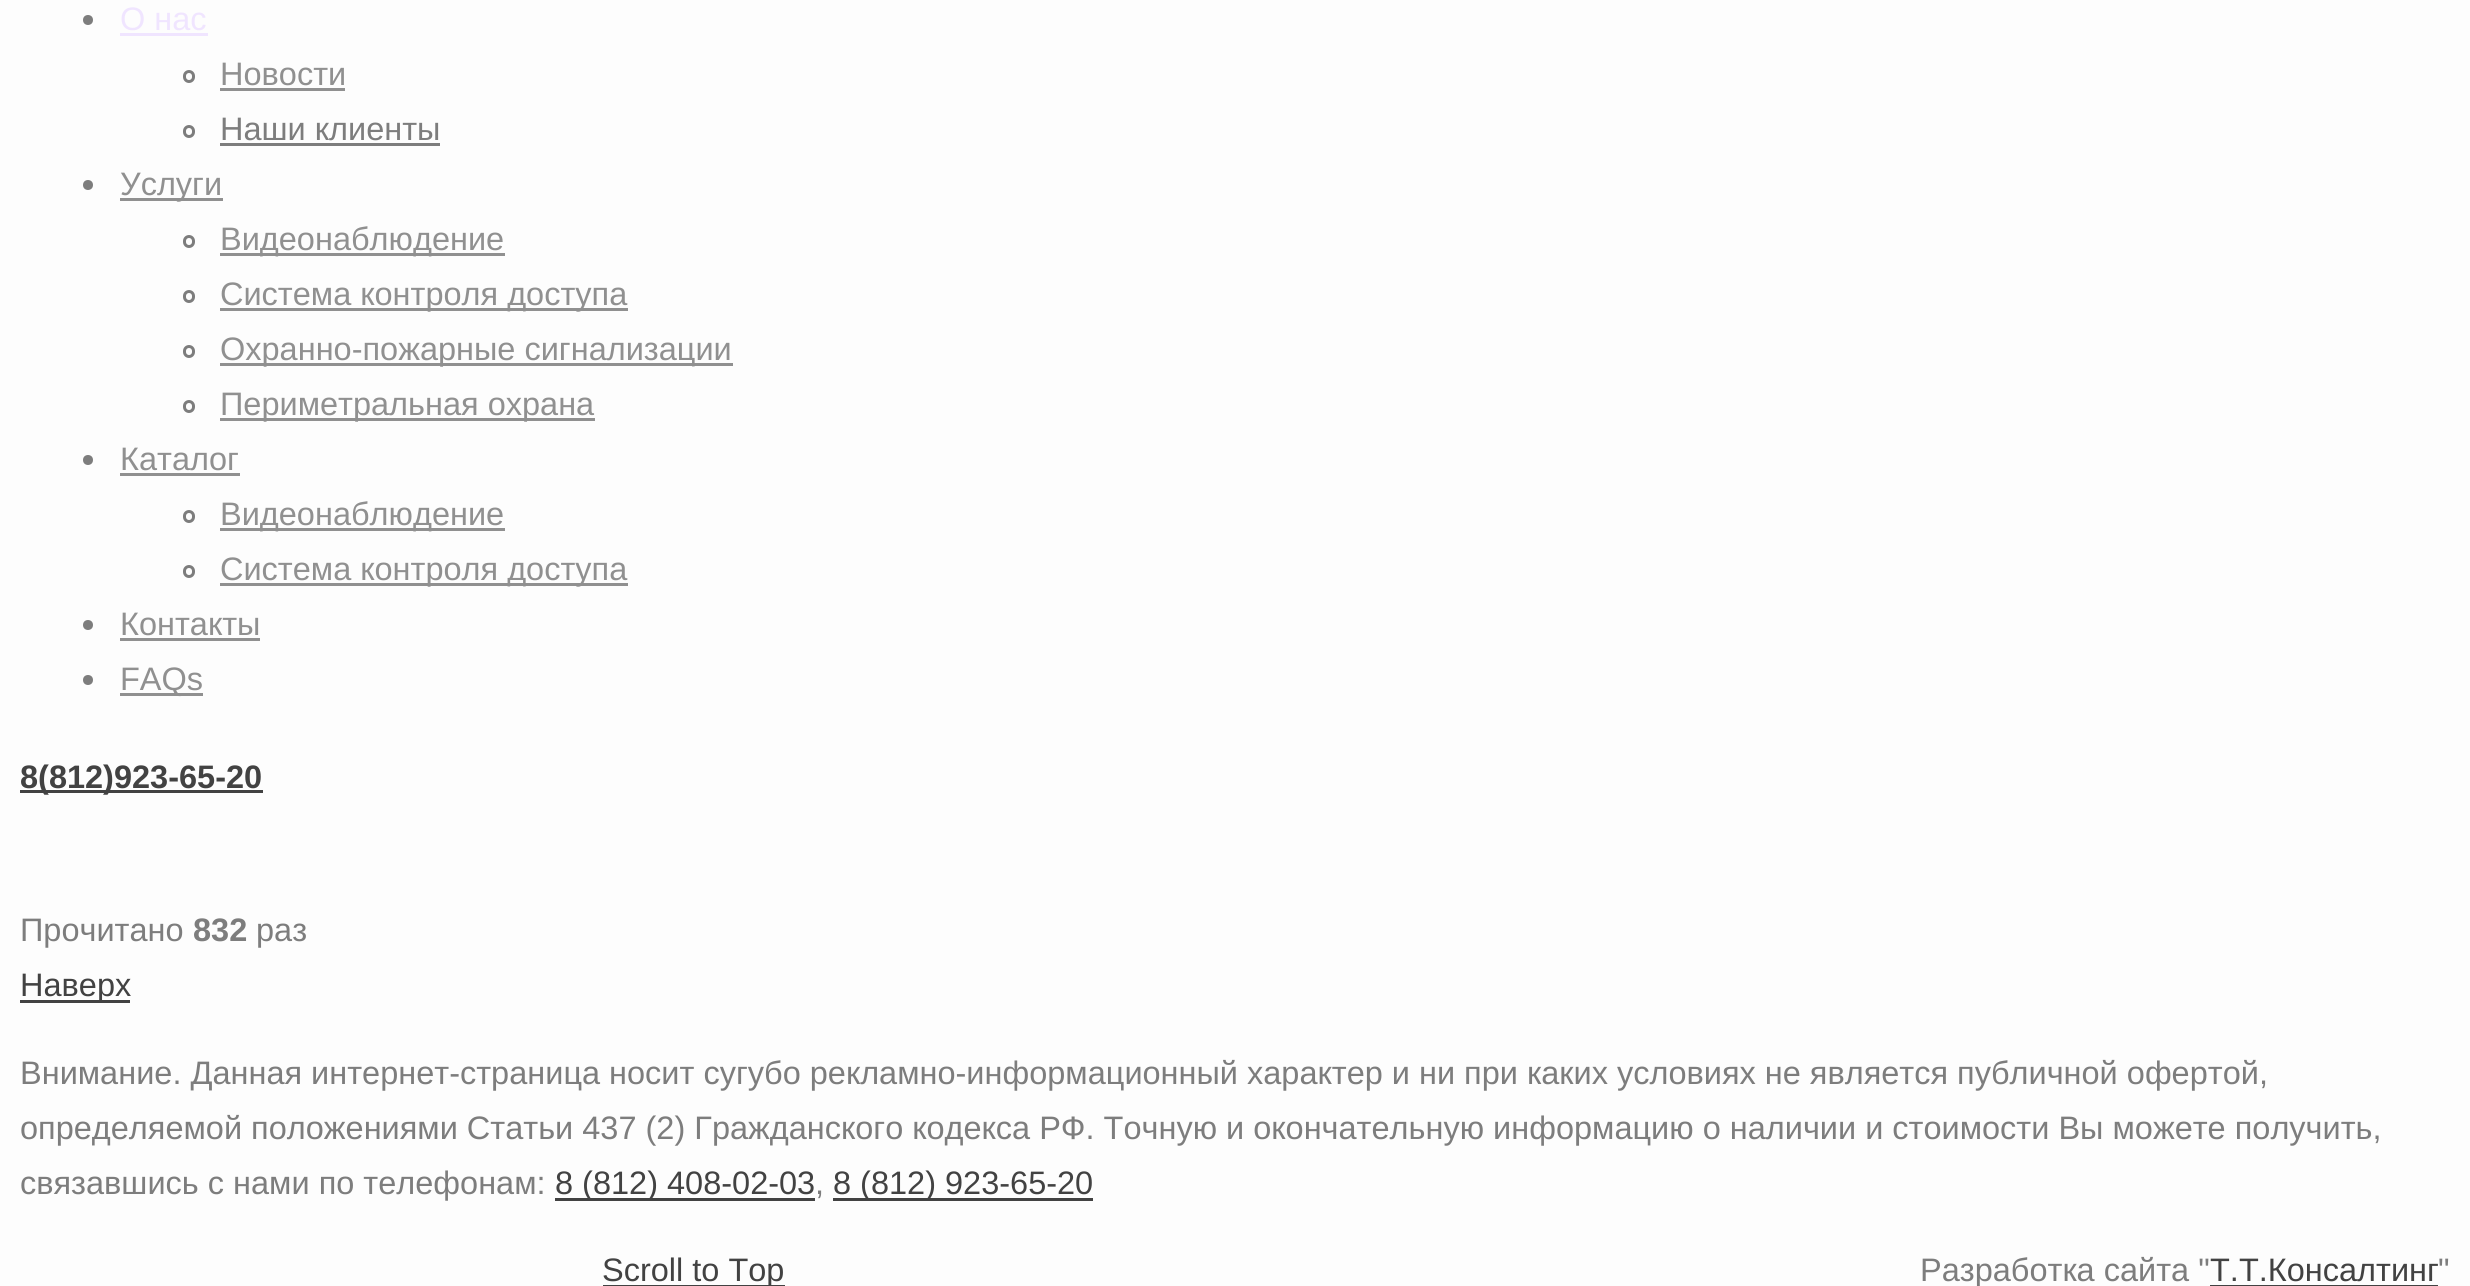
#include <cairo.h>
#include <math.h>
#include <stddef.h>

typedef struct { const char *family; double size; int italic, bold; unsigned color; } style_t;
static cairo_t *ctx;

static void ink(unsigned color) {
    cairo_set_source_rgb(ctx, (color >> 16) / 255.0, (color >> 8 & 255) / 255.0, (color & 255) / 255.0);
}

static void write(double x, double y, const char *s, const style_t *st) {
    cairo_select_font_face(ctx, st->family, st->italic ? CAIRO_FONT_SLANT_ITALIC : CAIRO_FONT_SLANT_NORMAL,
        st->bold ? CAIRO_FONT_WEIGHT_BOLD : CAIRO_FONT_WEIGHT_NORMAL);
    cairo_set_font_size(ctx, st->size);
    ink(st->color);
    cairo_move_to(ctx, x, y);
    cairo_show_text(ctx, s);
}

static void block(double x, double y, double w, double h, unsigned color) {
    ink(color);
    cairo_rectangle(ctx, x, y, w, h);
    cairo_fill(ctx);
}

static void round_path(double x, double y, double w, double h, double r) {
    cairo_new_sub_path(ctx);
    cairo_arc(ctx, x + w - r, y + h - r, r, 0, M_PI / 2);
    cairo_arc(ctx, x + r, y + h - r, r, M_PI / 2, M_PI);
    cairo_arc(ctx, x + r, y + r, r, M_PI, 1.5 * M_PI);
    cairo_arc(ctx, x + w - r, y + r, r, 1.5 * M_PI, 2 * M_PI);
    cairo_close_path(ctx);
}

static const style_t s1 = {"Liberation Sans", 32.5, 0, 0, 0xf0e5ff};
static const style_t s2 = {"Liberation Sans", 32.5, 0, 0, 0x909090};
static const style_t s3 = {"Liberation Sans", 32.5, 0, 0, 0x7d7d7d};
static const style_t s4 = {"Liberation Sans", 32.5, 0, 1, 0x424242};
static const style_t s5 = {"Liberation Sans", 32.5, 0, 1, 0x7d7d7d};
static const style_t s6 = {"Liberation Sans", 32.5, 0, 0, 0x424242};

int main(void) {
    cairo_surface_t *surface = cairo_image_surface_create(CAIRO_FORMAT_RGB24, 2470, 1286);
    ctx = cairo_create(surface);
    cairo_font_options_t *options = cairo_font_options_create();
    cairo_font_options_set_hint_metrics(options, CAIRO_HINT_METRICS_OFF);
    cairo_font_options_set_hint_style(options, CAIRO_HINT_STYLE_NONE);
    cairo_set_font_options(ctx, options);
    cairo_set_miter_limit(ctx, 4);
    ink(0xfdfdfd);
    cairo_paint(ctx);
    ink(0x7d7d7d);
    cairo_arc(ctx, 88, 20, 5, 0, 2 * M_PI);
    cairo_fill(ctx);
    write(120, 30, "О нас", &s1);
    block(120, 33, 88, 3, 0xf0e5ff);
    round_path(184.5, 71.5, 9, 10, 4.5);
    ink(0x7d7d7d);
    cairo_set_line_width(ctx, 3);
    cairo_stroke(ctx);
    write(220, 85, "Новости", &s2);
    block(220, 88, 125, 3, 0x909090);
    round_path(184.5, 126.5, 9, 10, 4.5);
    ink(0x7d7d7d);
    cairo_stroke(ctx);
    write(220, 140, "Наши клиенты", &s3);
    block(220, 143, 220, 3, 0x7d7d7d);
    cairo_new_path(ctx);
    cairo_arc(ctx, 88, 185, 5, 0, 2 * M_PI);
    cairo_fill(ctx);
    block(120, 198, 103, 3, 0x909090);
    write(120, 195, "Услуги", &s2);
    round_path(184.5, 236.5, 9, 10, 4.5);
    ink(0x7d7d7d);
    cairo_stroke(ctx);
    block(220, 253, 285, 3, 0x909090);
    write(220, 250, "Видеонаблюдение", &s2);
    round_path(184.5, 291.5, 9, 10, 4.5);
    ink(0x7d7d7d);
    cairo_stroke(ctx);
    block(220, 308, 408, 3, 0x909090);
    write(220, 305, "Система контроля доступа", &s2);
    round_path(184.5, 346.5, 9, 10, 4.5);
    ink(0x7d7d7d);
    cairo_stroke(ctx);
    block(220, 363, 513, 3, 0x909090);
    write(220, 360, "Охранно-пожарные сигнализации", &s2);
    round_path(184.5, 401.5, 9, 10, 4.5);
    ink(0x7d7d7d);
    cairo_stroke(ctx);
    block(220, 418, 375, 3, 0x909090);
    write(220, 415, "Периметральная охрана", &s2);
    ink(0x7d7d7d);
    cairo_new_path(ctx);
    cairo_arc(ctx, 88, 460, 5, 0, 2 * M_PI);
    cairo_fill(ctx);
    write(120, 470, "Каталог", &s2);
    block(120, 473, 120, 3, 0x909090);
    round_path(184.5, 511.5, 9, 10, 4.5);
    ink(0x7d7d7d);
    cairo_stroke(ctx);
    block(220, 528, 285, 3, 0x909090);
    write(220, 525, "Видеонаблюдение", &s2);
    round_path(184.5, 566.5, 9, 10, 4.5);
    ink(0x7d7d7d);
    cairo_stroke(ctx);
    block(220, 583, 408, 3, 0x909090);
    write(220, 580, "Система контроля доступа", &s2);
    ink(0x7d7d7d);
    cairo_new_path(ctx);
    cairo_arc(ctx, 88, 625, 5, 0, 2 * M_PI);
    cairo_fill(ctx);
    write(120, 635, "Контакты", &s2);
    block(120, 638, 140, 3, 0x909090);
    ink(0x7d7d7d);
    cairo_new_path(ctx);
    cairo_arc(ctx, 88, 680, 5, 0, 2 * M_PI);
    cairo_fill(ctx);
    block(120, 693, 83, 3, 0x909090);
    write(120, 690, "FAQs", &s2);
    block(20, 790, 243, 3, 0x424242);
    write(20, 788, "8(812)923-65-20", &s4);
    write(20, 941, "Прочитано", &s3);
    write(193, 941, "832", &s5);
    write(256, 941, "раз", &s3);
    block(20, 1000, 110, 3, 0x424242);
    write(20, 996, "Наверх", &s6);
    write(20, 1084, "Внимание. Данная интернет-страница носит сугубо рекламно-информационный характер и ни при каких условиях не является публичной офертой,", &s3);
    write(20, 1139, "определяемой положениями Статьи 437 (2) Гражданского кодекса РФ. Точную и окончательную информацию о наличии и стоимости Вы можете получить,", &s3);
    write(20, 1194, "связавшись с нами по телефонам:", &s3);
    block(555, 1198, 260, 3, 0x424242);
    write(555, 1194, "8 (812) 408-02-03", &s6);
    write(815, 1194, ",", &s3);
    block(833, 1198, 260, 3, 0x424242);
    write(833, 1194, "8 (812) 923-65-20", &s6);
    write(1920, 1281, "Разработка сайта \"", &s3);
    write(2210, 1281, "Т.Т.Консалтинг", &s6);
    block(2210, 1285, 228, 1, 0x424242);
    write(2438, 1281, "\"", &s3);
    block(603, 1285, 182, 1, 0x424242);
    write(602, 1281, "Scroll to Top", &s6);
    cairo_surface_write_to_png(surface, "screenshot.png");
    cairo_font_options_destroy(options);
    cairo_destroy(ctx);
    cairo_surface_destroy(surface);
    return 0;
}
